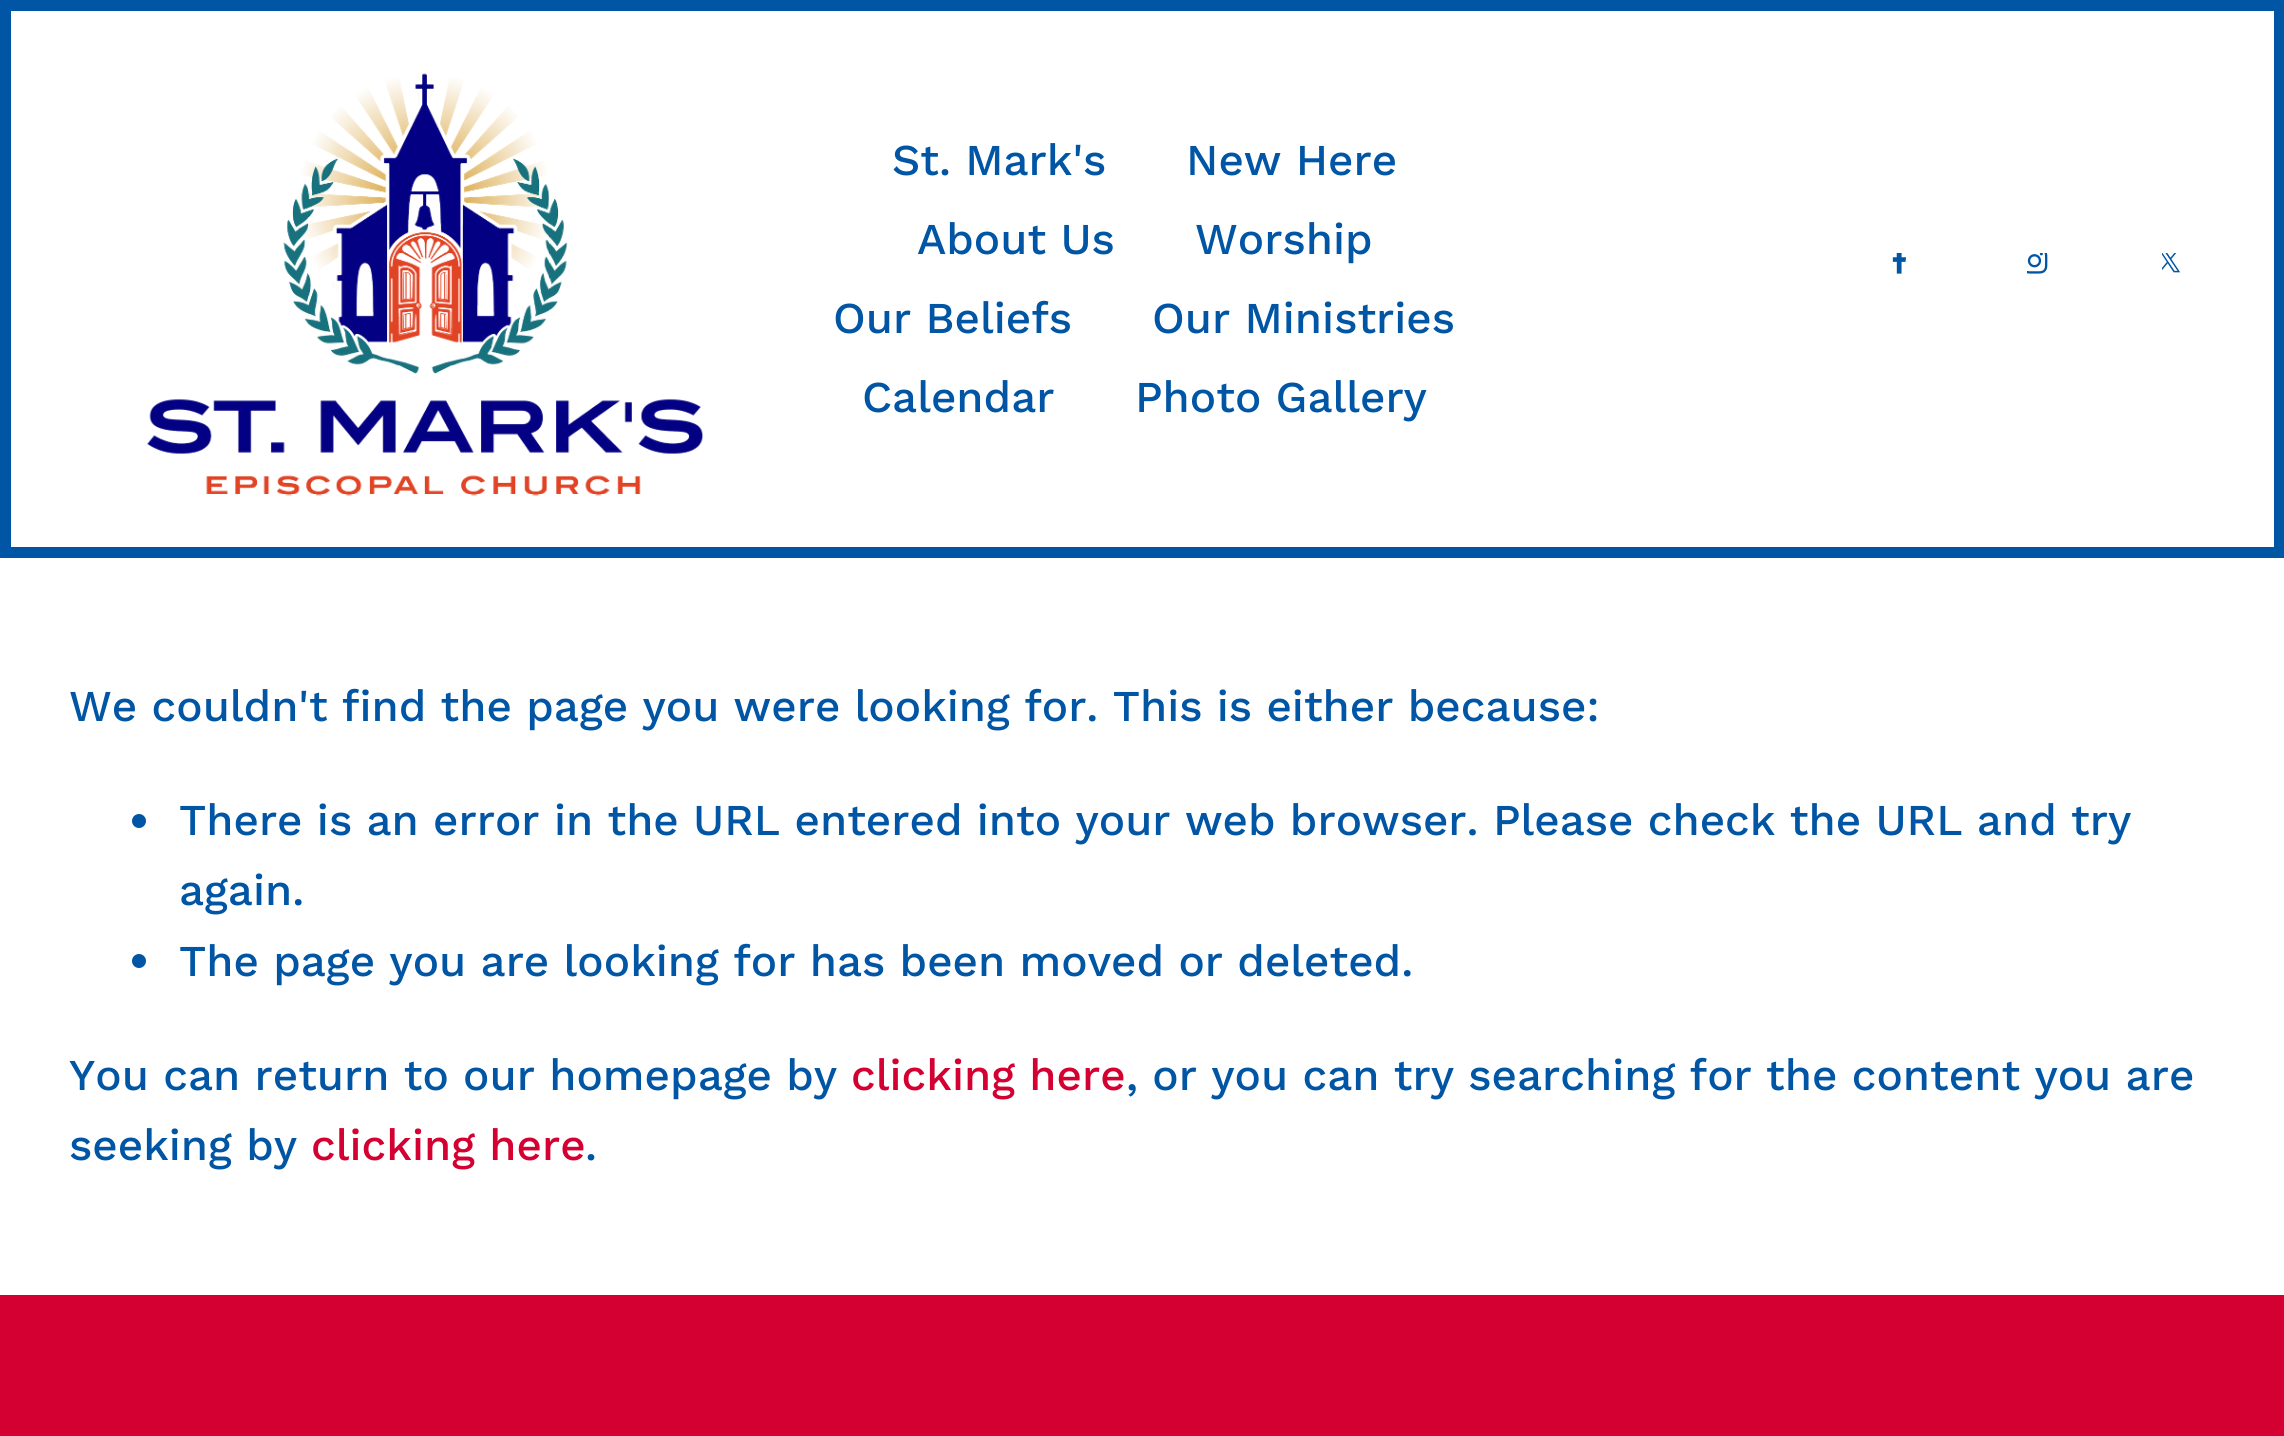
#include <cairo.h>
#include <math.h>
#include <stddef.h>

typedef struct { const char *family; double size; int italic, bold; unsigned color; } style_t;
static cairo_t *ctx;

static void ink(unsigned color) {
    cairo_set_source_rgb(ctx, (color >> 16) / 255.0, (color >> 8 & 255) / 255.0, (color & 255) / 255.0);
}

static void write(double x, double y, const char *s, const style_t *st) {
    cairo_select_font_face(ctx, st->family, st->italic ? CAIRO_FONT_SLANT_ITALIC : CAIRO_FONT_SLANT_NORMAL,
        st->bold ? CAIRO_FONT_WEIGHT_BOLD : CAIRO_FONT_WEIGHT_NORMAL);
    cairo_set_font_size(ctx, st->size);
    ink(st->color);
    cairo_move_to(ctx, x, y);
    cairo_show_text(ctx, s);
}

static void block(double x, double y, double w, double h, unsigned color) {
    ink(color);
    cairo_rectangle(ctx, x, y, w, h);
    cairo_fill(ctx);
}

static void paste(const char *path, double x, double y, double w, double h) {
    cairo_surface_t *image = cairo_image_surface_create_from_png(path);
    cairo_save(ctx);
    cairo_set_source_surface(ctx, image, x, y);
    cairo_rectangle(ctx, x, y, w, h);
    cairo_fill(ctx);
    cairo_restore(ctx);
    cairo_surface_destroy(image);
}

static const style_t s1 = {"Work Sans Medium", 44, 0, 0, 0x0055a4};
static const style_t s2 = {"Work Sans Medium", 44, 0, 0, 0xd50032};

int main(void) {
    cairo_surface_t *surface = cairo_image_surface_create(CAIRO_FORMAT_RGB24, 2284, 1436);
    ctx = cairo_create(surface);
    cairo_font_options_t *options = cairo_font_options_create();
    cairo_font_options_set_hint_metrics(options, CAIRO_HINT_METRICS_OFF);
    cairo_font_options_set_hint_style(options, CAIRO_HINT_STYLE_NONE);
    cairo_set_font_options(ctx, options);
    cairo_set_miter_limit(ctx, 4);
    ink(0xffffff);
    cairo_paint(ctx);
    cairo_rectangle(ctx, 5.5, 5.5, 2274, 547);
    ink(0x0055a4);
    cairo_set_line_width(ctx, 11);
    cairo_stroke(ctx);
    paste("pic1.png", 147, 73, 557, 423);
    write(892, 175, "St. Mark's", &s1);
    write(1186, 175, "New Here", &s1);
    write(917, 254, "About Us", &s1);
    write(1195, 254, "Worship", &s1);
    write(833, 333, "Our Beliefs", &s1);
    write(1152, 333, "Our Ministries", &s1);
    write(862, 412, "Calendar", &s1);
    write(1135, 412, "Photo Gallery", &s1);
    paste("pic2.png", 1892, 253, 15, 21);
    paste("pic3.png", 2027, 253, 21, 21);
    paste("pic4.png", 2162, 253, 19, 20);
    write(69, 721, "We couldn't find the page you were looking for. This is either because:", &s1);
    cairo_new_path(ctx);
    cairo_arc(ctx, 139, 821, 7, 0, 2 * M_PI);
    cairo_fill(ctx);
    write(179, 835, "There is an error in the URL entered into your web browser. Please check the URL and try", &s1);
    write(179, 905, "again.", &s1);
    cairo_new_path(ctx);
    cairo_arc(ctx, 139, 961, 7, 0, 2 * M_PI);
    cairo_fill(ctx);
    write(179, 976, "The page you are looking for has been moved or deleted.", &s1);
    write(69, 1090, "You can return to our homepage by", &s1);
    write(851, 1090, "clicking here", &s2);
    write(1126, 1090, ", or you can try searching for the content you are", &s1);
    write(69, 1160, "seeking by", &s1);
    write(311, 1160, "clicking here", &s2);
    write(585, 1160, ".", &s1);
    block(0, 1295, 2284, 141, 0xd50032);
    cairo_surface_write_to_png(surface, "screenshot.png");
    cairo_font_options_destroy(options);
    cairo_destroy(ctx);
    cairo_surface_destroy(surface);
    return 0;
}
